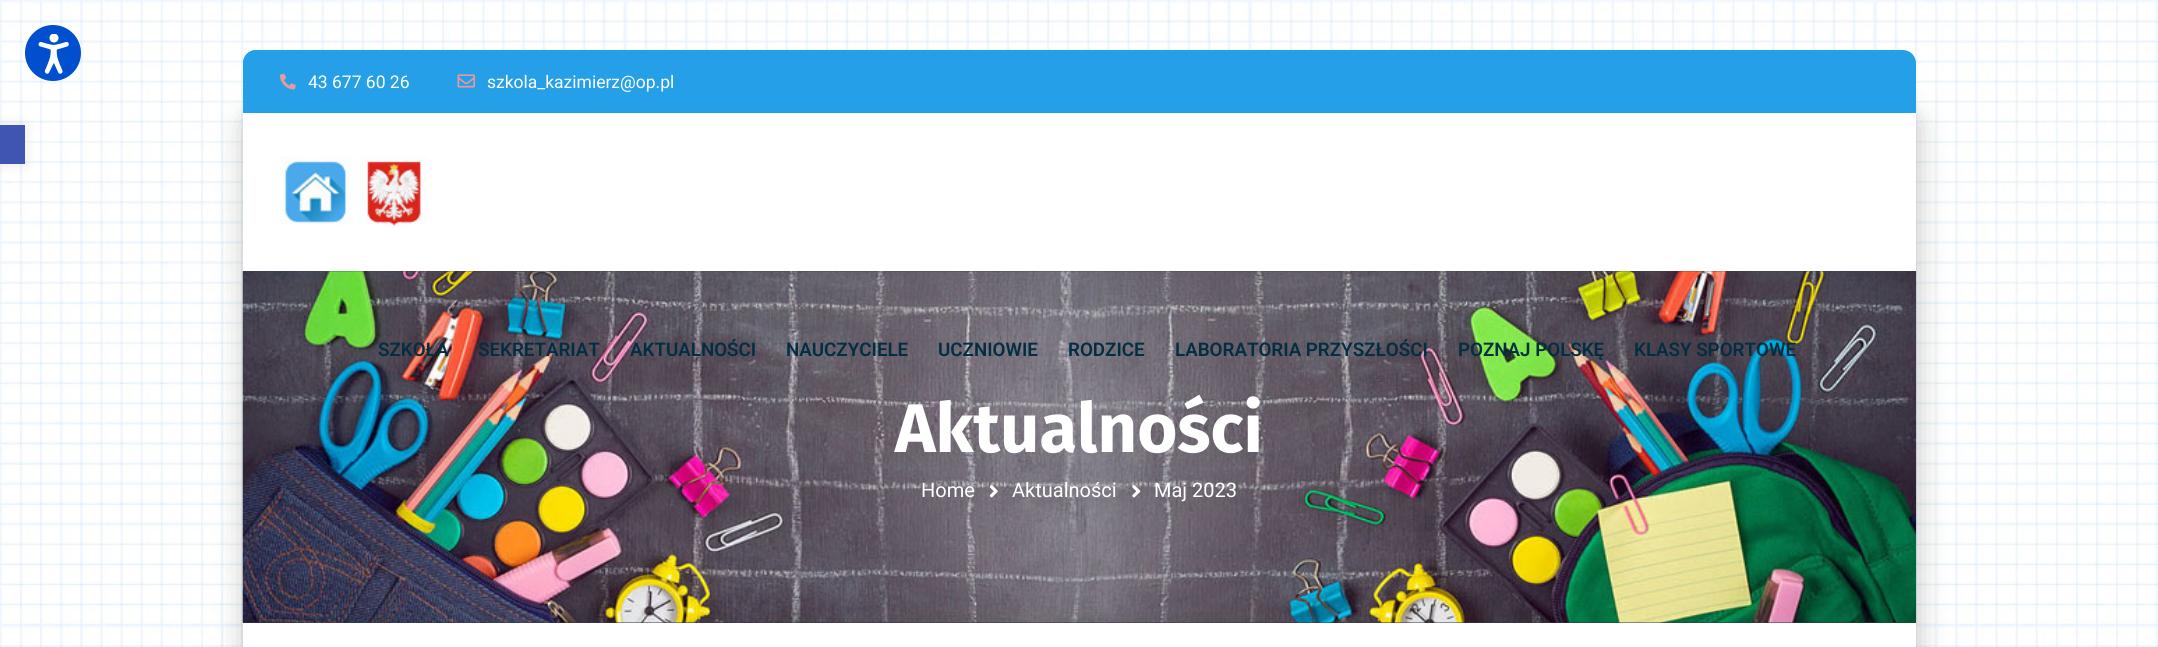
#include <cairo.h>
#include <math.h>
#include <stddef.h>

typedef struct { const char *family; double size; int italic, bold; unsigned color; } style_t;
static cairo_t *ctx;

static void ink(unsigned color) {
    cairo_set_source_rgb(ctx, (color >> 16) / 255.0, (color >> 8 & 255) / 255.0, (color & 255) / 255.0);
}

static void write(double x, double y, const char *s, const style_t *st) {
    cairo_select_font_face(ctx, st->family, st->italic ? CAIRO_FONT_SLANT_ITALIC : CAIRO_FONT_SLANT_NORMAL,
        st->bold ? CAIRO_FONT_WEIGHT_BOLD : CAIRO_FONT_WEIGHT_NORMAL);
    cairo_set_font_size(ctx, st->size);
    ink(st->color);
    cairo_move_to(ctx, x, y);
    cairo_show_text(ctx, s);
}

static void block(double x, double y, double w, double h, unsigned color) {
    ink(color);
    cairo_rectangle(ctx, x, y, w, h);
    cairo_fill(ctx);
}

static void round_path(double x, double y, double w, double h, double r) {
    cairo_new_sub_path(ctx);
    cairo_arc(ctx, x + w - r, y + h - r, r, 0, M_PI / 2);
    cairo_arc(ctx, x + r, y + h - r, r, M_PI / 2, M_PI);
    cairo_arc(ctx, x + r, y + r, r, M_PI, 1.5 * M_PI);
    cairo_arc(ctx, x + w - r, y + r, r, 1.5 * M_PI, 2 * M_PI);
    cairo_close_path(ctx);
}

static void blur_box(double x, double y, double w, double h, double r, double blur, double alpha) {
    cairo_push_group_with_content(ctx, CAIRO_CONTENT_ALPHA);
    cairo_set_operator(ctx, CAIRO_OPERATOR_SOURCE);
    for (int i = 15; i >= -15 && fmin(w, h) + blur * i / 3 > 0; i -= 2) {
        double e = blur * i / 6;
        cairo_set_source_rgba(ctx, 0, 0, 0, alpha * erfc((i - 1) / 8.5) / 2);
        round_path(x - e, y - e, w + 2 * e, h + 2 * e, fmax(0, fmin(r + e + blur * .6, fmin(w, h) / 2 + e)));
        cairo_fill(ctx);
    }
    cairo_pattern_t *soft = cairo_pop_group(ctx);
    cairo_mask(ctx, soft);
    cairo_pattern_destroy(soft);
}

static void paste(const char *path, double x, double y, double w, double h) {
    cairo_surface_t *image = cairo_image_surface_create_from_png(path);
    cairo_save(ctx);
    cairo_set_source_surface(ctx, image, x, y);
    cairo_rectangle(ctx, x, y, w, h);
    cairo_fill(ctx);
    cairo_restore(ctx);
    cairo_surface_destroy(image);
}

static const style_t s1 = {"Roboto", 17.5, 0, 0, 0xffffff};
static const style_t s2 = {"Roboto SemiBold", 18.75, 0, 0, 0x032e42};
static const style_t s3 = {"Fira Sans", 68.75, 0, 1, 0xffffff};
static const style_t s4 = {"Roboto", 20, 0, 0, 0xffffff};

int main(void) {
    cairo_surface_t *surface = cairo_image_surface_create(CAIRO_FORMAT_RGB24, 2158, 647);
    ctx = cairo_create(surface);
    cairo_font_options_t *options = cairo_font_options_create();
    cairo_font_options_set_hint_metrics(options, CAIRO_HINT_METRICS_OFF);
    cairo_font_options_set_hint_style(options, CAIRO_HINT_STYLE_NONE);
    cairo_set_font_options(ctx, options);
    cairo_set_miter_limit(ctx, 4);
    ink(0xffffff);
    cairo_paint(ctx);
    paste("pic2.png", 0, 0, 2158, 647);
    ink(0x004fce);
    cairo_arc(ctx, 53, 53, 28, 0, 2 * M_PI);
    cairo_fill(ctx);
    paste("pic1.png", 38, 34, 31, 40);
    ink(0x000000);
    blur_box(0, 125, 25, 39, 0, 6, 0.1);
    block(0, 125, 25, 39, 0x4054b2);
    ink(0x000000);
    blur_box(243, 113, 1676, 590, 14, 14, 0.21);
    ink(0x25a0e8);
    cairo_new_path(ctx);
    cairo_move_to(ctx, 256, 50);
    cairo_line_to(ctx, 1903, 50);
    cairo_curve_to(ctx, 1910, 50, 1916, 56, 1916, 63);
    cairo_line_to(ctx, 1916, 113);
    cairo_line_to(ctx, 243, 113);
    cairo_line_to(ctx, 243, 63);
    cairo_curve_to(ctx, 243, 56, 249, 50, 256, 50);
    cairo_close_path(ctx);
    cairo_fill(ctx);
    cairo_new_path(ctx);
    cairo_move_to(ctx, 256, 50);
    cairo_line_to(ctx, 305, 50);
    cairo_line_to(ctx, 305, 113);
    cairo_line_to(ctx, 243, 113);
    cairo_line_to(ctx, 243, 63);
    cairo_curve_to(ctx, 243, 56, 249, 50, 256, 50);
    cairo_close_path(ctx);
    cairo_fill(ctx);
    paste("pic3.png", 280, 73, 16, 17);
    write(308, 88, "43 677 60 26", &s1);
    paste("pic4.png", 457, 74, 18, 14);
    write(487, 88, "szkola_kazimierz@op.pl", &s1);
    block(243, 113, 1673, 158, 0xffffff);
    paste("pic5.png", 280, 156, 147, 71);
    block(243, 271, 1673, 352, 0x343a40);
    paste("pic6.png", 242, 271, 1675, 352);
    write(378, 356, "SZKOŁA", &s2);
    write(478, 356, "SEKRETARIAT", &s2);
    write(630, 356, "AKTUALNOŚCI", &s2);
    write(786, 356, "NAUCZYCIELE", &s2);
    write(938, 356, "UCZNIOWIE", &s2);
    write(1068, 356, "RODZICE", &s2);
    write(1175, 356, "LABORATORIA PRZYSZŁOŚCI", &s2);
    write(1458, 356, "POZNAJ POLSKĘ", &s2);
    write(1634, 356, "KLASY SPORTOWE", &s2);
    write(895, 452, "Aktualności", &s3);
    write(921, 497, "Home", &s4);
    paste("pic7.png", 989, 485, 9, 13);
    write(1012, 497, "Aktualności", &s4);
    paste("pic8.png", 1132, 485, 9, 13);
    write(1154, 497, "Maj 2023", &s4);
    block(243, 623, 1673, 24, 0xffffff);
    cairo_surface_write_to_png(surface, "screenshot.png");
    cairo_font_options_destroy(options);
    cairo_destroy(ctx);
    cairo_surface_destroy(surface);
    return 0;
}
